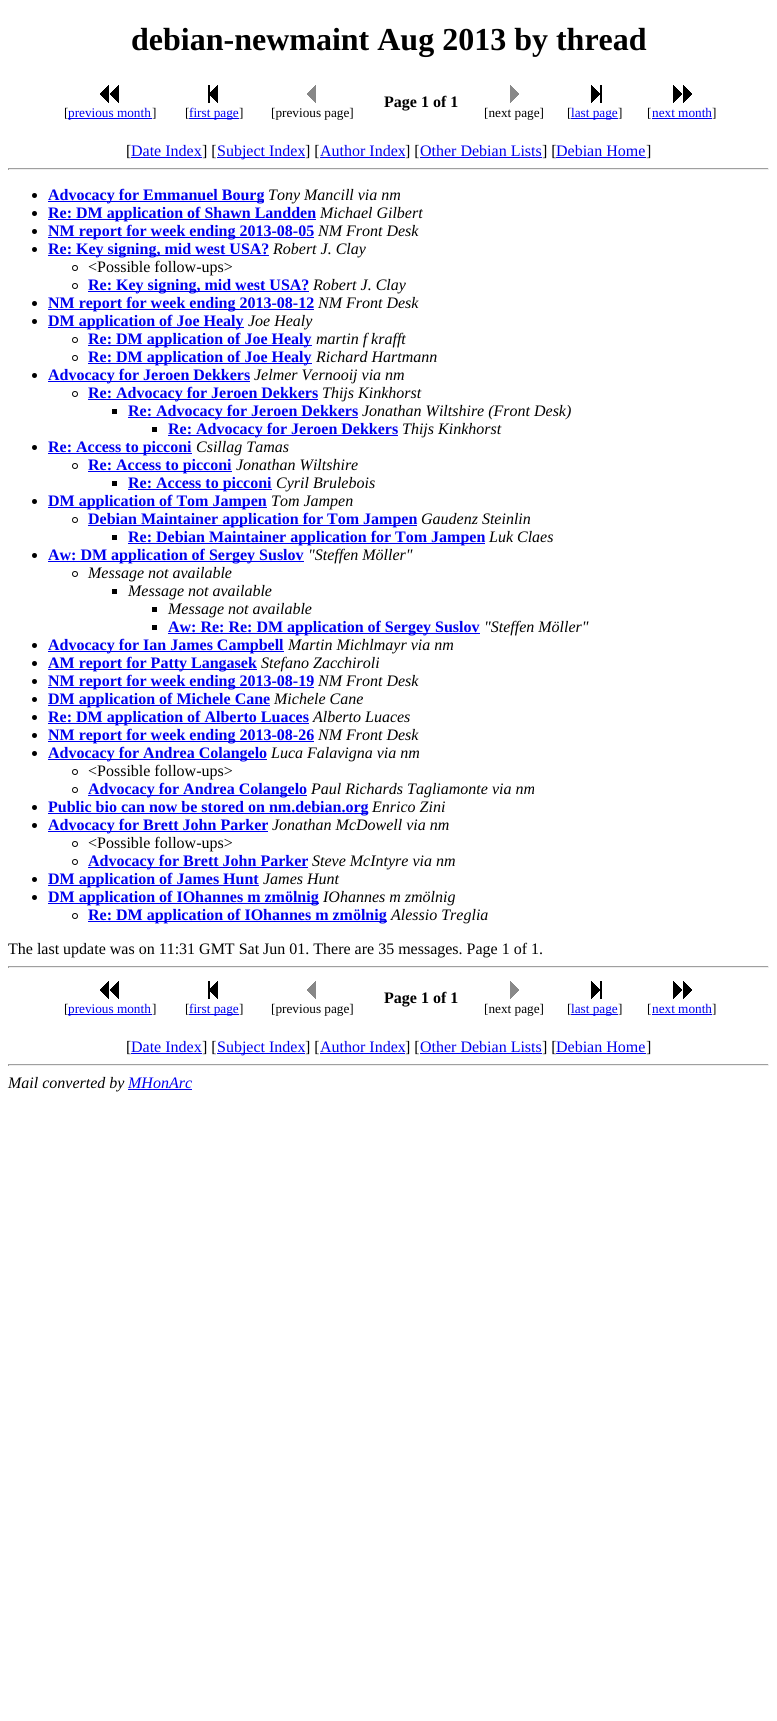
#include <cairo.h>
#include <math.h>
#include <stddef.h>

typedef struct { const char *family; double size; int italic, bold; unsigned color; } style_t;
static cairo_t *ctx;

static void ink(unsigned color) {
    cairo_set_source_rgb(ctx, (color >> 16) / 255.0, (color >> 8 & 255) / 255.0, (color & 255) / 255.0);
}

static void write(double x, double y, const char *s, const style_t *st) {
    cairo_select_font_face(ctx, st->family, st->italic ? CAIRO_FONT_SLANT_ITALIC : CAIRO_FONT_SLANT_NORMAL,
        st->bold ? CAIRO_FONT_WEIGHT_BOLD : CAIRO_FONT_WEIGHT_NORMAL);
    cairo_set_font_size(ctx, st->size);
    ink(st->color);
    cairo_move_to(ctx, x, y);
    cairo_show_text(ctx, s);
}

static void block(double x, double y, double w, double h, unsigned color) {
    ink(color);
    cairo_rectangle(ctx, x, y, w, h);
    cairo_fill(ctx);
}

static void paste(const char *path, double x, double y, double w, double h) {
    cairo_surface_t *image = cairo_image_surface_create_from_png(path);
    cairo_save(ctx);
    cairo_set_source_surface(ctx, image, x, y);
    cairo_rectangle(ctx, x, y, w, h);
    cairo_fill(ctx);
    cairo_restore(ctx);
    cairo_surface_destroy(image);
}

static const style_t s1 = {"Liberation Serif", 32, 0, 1, 0x000000};
static const style_t s2 = {"Liberation Serif", 16, 0, 1, 0x000000};
static const style_t s3 = {"Liberation Serif", 13.25, 0, 0, 0x000000};
static const style_t s4 = {"Liberation Serif", 13.25, 0, 0, 0x0000ee};
static const style_t s5 = {"Liberation Serif", 16, 0, 0, 0x000000};
static const style_t s6 = {"Liberation Serif", 16, 0, 0, 0x0000ee};
static const style_t s7 = {"Liberation Serif", 16, 0, 1, 0x0000ee};
static const style_t s8 = {"Liberation Serif", 16, 1, 0, 0x000000};
static const style_t s9 = {"Liberation Serif", 16, 1, 0, 0x0000ee};

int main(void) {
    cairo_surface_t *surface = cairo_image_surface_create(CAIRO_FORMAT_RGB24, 777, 1721);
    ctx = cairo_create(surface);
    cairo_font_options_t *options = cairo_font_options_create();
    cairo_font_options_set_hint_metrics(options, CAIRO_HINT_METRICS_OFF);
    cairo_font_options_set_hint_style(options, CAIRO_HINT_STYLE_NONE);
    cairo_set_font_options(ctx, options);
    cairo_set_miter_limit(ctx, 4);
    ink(0xffffff);
    cairo_paint(ctx);
    write(131, 50, "debian-newmaint Aug 2013 by thread", &s1);
    write(384, 107, "Page 1 of 1", &s2);
    paste("pic1.png", 100, 85, 19, 18);
    write(64, 117, "[", &s3);
    block(68, 118, 84, 1, 0x0000ee);
    write(68, 117, "previous month", &s4);
    write(152, 117, "]", &s3);
    paste("pic2.png", 208, 85, 10, 18);
    write(185, 117, "[", &s3);
    block(189, 118, 50, 1, 0x0000ee);
    write(189, 117, "first page", &s4);
    write(239, 117, "]", &s3);
    paste("pic3.png", 307, 85, 9, 18);
    write(271, 117, "[previous page]", &s3);
    paste("pic4.png", 510, 85, 9, 18);
    write(484, 117, "[next page]", &s3);
    paste("pic5.png", 591, 85, 11, 18);
    write(567, 117, "[", &s3);
    block(571, 118, 47, 1, 0x0000ee);
    write(571, 117, "last page", &s4);
    write(618, 117, "]", &s3);
    paste("pic6.png", 673, 85, 19, 18);
    write(647, 117, "[", &s3);
    block(652, 118, 60, 1, 0x0000ee);
    write(652, 117, "next month", &s4);
    write(712, 117, "]", &s3);
    write(126, 156, "[", &s5);
    write(131, 156, "Date Index", &s6);
    block(131, 157, 71, 1, 0x0000ee);
    write(202, 156, "] [", &s5);
    block(217, 157, 88, 1, 0x0000ee);
    write(217, 156, "Subject Index", &s6);
    write(305, 156, "] [", &s5);
    write(320, 156, "Author Index", &s6);
    block(320, 157, 85, 1, 0x0000ee);
    write(405, 156, "] [", &s5);
    write(420, 156, "Other Debian Lists", &s6);
    block(420, 157, 122, 1, 0x0000ee);
    write(542, 156, "] [", &s5);
    write(556, 156, "Debian Home", &s6);
    block(556, 157, 90, 1, 0x0000ee);
    write(646, 156, "]", &s5);
    block(8, 168, 761, 1, 0x9f9f9f);
    block(768, 168, 1, 2, 0xeeeeee);
    block(8, 169, 761, 1, 0xeeeeee);
    block(8, 168, 1, 2, 0x9f9f9f);
    ink(0x000000);
    cairo_new_path(ctx);
    cairo_arc(ctx, 34.5, 195.5, 2.5, 0, 2 * M_PI);
    cairo_fill(ctx);
    block(48, 201, 216, 1, 0x0000ee);
    write(48, 200, "Advocacy for Emmanuel Bourg", &s7);
    write(268, 200, "Tony Mancill via nm", &s8);
    cairo_new_path(ctx);
    cairo_arc(ctx, 34.5, 213.5, 2.5, 0, 2 * M_PI);
    cairo_fill(ctx);
    block(48, 219, 268, 1, 0x0000ee);
    write(48, 218, "Re: DM application of Shawn Landden", &s7);
    write(320, 218, "Michael Gilbert", &s8);
    cairo_new_path(ctx);
    cairo_arc(ctx, 34.5, 231.5, 2.5, 0, 2 * M_PI);
    cairo_fill(ctx);
    block(48, 237, 266, 1, 0x0000ee);
    write(48, 236, "NM report for week ending 2013-08-05", &s7);
    write(318, 236, "NM Front Desk", &s8);
    cairo_new_path(ctx);
    cairo_arc(ctx, 34.5, 249.5, 2.5, 0, 2 * M_PI);
    cairo_fill(ctx);
    block(48, 255, 221, 1, 0x0000ee);
    write(48, 254, "Re: Key signing, mid west USA?", &s7);
    write(273, 254, "Robert J. Clay", &s8);
    cairo_new_path(ctx);
    cairo_arc(ctx, 75, 268, 2.5, 0, 2 * M_PI);
    cairo_set_line_width(ctx, 1);
    cairo_stroke(ctx);
    write(88, 272, "<Possible follow-ups>", &s5);
    cairo_new_path(ctx);
    cairo_arc(ctx, 75, 286, 2.5, 0, 2 * M_PI);
    cairo_stroke(ctx);
    block(88, 291, 221, 1, 0x0000ee);
    write(88, 290, "Re: Key signing, mid west USA?", &s7);
    write(313, 290, "Robert J. Clay", &s8);
    cairo_new_path(ctx);
    cairo_arc(ctx, 34.5, 303.5, 2.5, 0, 2 * M_PI);
    cairo_fill(ctx);
    block(48, 309, 266, 1, 0x0000ee);
    write(48, 308, "NM report for week ending 2013-08-12", &s7);
    write(318, 308, "NM Front Desk", &s8);
    cairo_new_path(ctx);
    cairo_arc(ctx, 34.5, 321.5, 2.5, 0, 2 * M_PI);
    cairo_fill(ctx);
    block(48, 327, 196, 1, 0x0000ee);
    write(48, 326, "DM application of Joe Healy", &s7);
    write(248, 326, "Joe Healy", &s8);
    cairo_new_path(ctx);
    cairo_arc(ctx, 75, 340, 2.5, 0, 2 * M_PI);
    cairo_stroke(ctx);
    block(88, 345, 224, 1, 0x0000ee);
    write(88, 344, "Re: DM application of Joe Healy", &s7);
    write(316, 344, "martin f krafft", &s8);
    cairo_new_path(ctx);
    cairo_arc(ctx, 75, 358, 2.5, 0, 2 * M_PI);
    cairo_stroke(ctx);
    block(88, 363, 224, 1, 0x0000ee);
    write(88, 362, "Re: DM application of Joe Healy", &s7);
    write(316, 362, "Richard Hartmann", &s8);
    cairo_new_path(ctx);
    cairo_arc(ctx, 34.5, 375.5, 2.5, 0, 2 * M_PI);
    cairo_fill(ctx);
    block(48, 381, 202, 1, 0x0000ee);
    write(48, 380, "Advocacy for Jeroen Dekkers", &s7);
    write(254, 380, "Jelmer Vernooij via nm", &s8);
    cairo_new_path(ctx);
    cairo_arc(ctx, 75, 394, 2.5, 0, 2 * M_PI);
    cairo_stroke(ctx);
    block(88, 399, 230, 1, 0x0000ee);
    write(88, 398, "Re: Advocacy for Jeroen Dekkers", &s7);
    write(322, 398, "Thijs Kinkhorst", &s8);
    block(112, 409, 5, 5, 0x000000);
    block(128, 417, 230, 1, 0x0000ee);
    write(128, 416, "Re: Advocacy for Jeroen Dekkers", &s7);
    write(362, 416, "Jonathan Wiltshire (Front Desk)", &s8);
    block(152, 427, 5, 5, 0x000000);
    block(168, 435, 230, 1, 0x0000ee);
    write(168, 434, "Re: Advocacy for Jeroen Dekkers", &s7);
    write(402, 434, "Thijs Kinkhorst", &s8);
    cairo_new_path(ctx);
    cairo_arc(ctx, 34.5, 447.5, 2.5, 0, 2 * M_PI);
    cairo_fill(ctx);
    block(48, 453, 144, 1, 0x0000ee);
    write(48, 452, "Re: Access to picconi", &s7);
    write(196, 452, "Csillag Tamas", &s8);
    cairo_new_path(ctx);
    cairo_arc(ctx, 75, 466, 2.5, 0, 2 * M_PI);
    cairo_stroke(ctx);
    block(88, 471, 144, 1, 0x0000ee);
    write(88, 470, "Re: Access to picconi", &s7);
    write(236, 470, "Jonathan Wiltshire", &s8);
    block(112, 481, 5, 5, 0x000000);
    block(128, 489, 144, 1, 0x0000ee);
    write(128, 488, "Re: Access to picconi", &s7);
    write(276, 488, "Cyril Brulebois", &s8);
    cairo_new_path(ctx);
    cairo_arc(ctx, 34.5, 501.5, 2.5, 0, 2 * M_PI);
    cairo_fill(ctx);
    block(48, 507, 219, 1, 0x0000ee);
    write(48, 506, "DM application of Tom Jampen", &s7);
    write(271, 506, "Tom Jampen", &s8);
    cairo_new_path(ctx);
    cairo_arc(ctx, 75, 520, 2.5, 0, 2 * M_PI);
    cairo_stroke(ctx);
    block(88, 525, 329, 1, 0x0000ee);
    write(88, 524, "Debian Maintainer application for Tom Jampen", &s7);
    write(421, 524, "Gaudenz Steinlin", &s8);
    block(112, 535, 5, 5, 0x000000);
    block(128, 543, 357, 1, 0x0000ee);
    write(128, 542, "Re: Debian Maintainer application for Tom Jampen", &s7);
    write(489, 542, "Luk Claes", &s8);
    cairo_new_path(ctx);
    cairo_arc(ctx, 34.5, 555.5, 2.5, 0, 2 * M_PI);
    cairo_fill(ctx);
    block(48, 561, 256, 1, 0x0000ee);
    write(48, 560, "Aw: DM application of Sergey Suslov", &s7);
    write(308, 560, "\"Steffen Möller\"", &s8);
    cairo_new_path(ctx);
    cairo_arc(ctx, 75, 574, 2.5, 0, 2 * M_PI);
    cairo_stroke(ctx);
    write(88, 578, "Message not available", &s8);
    block(112, 589, 5, 5, 0x000000);
    write(128, 596, "Message not available", &s8);
    block(152, 607, 5, 5, 0x000000);
    write(168, 614, "Message not available", &s8);
    block(152, 625, 5, 5, 0x000000);
    block(168, 633, 312, 1, 0x0000ee);
    write(168, 632, "Aw: Re: Re: DM application of Sergey Suslov", &s7);
    write(484, 632, "\"Steffen Möller\"", &s8);
    cairo_new_path(ctx);
    cairo_arc(ctx, 34.5, 645.5, 2.5, 0, 2 * M_PI);
    cairo_fill(ctx);
    block(48, 651, 236, 1, 0x0000ee);
    write(48, 650, "Advocacy for Ian James Campbell", &s7);
    write(288, 650, "Martin Michlmayr via nm", &s8);
    cairo_new_path(ctx);
    cairo_arc(ctx, 34.5, 663.5, 2.5, 0, 2 * M_PI);
    cairo_fill(ctx);
    block(48, 669, 209, 1, 0x0000ee);
    write(48, 668, "AM report for Patty Langasek", &s7);
    write(261, 668, "Stefano Zacchiroli", &s8);
    cairo_new_path(ctx);
    cairo_arc(ctx, 34.5, 681.5, 2.5, 0, 2 * M_PI);
    cairo_fill(ctx);
    block(48, 687, 266, 1, 0x0000ee);
    write(48, 686, "NM report for week ending 2013-08-19", &s7);
    write(318, 686, "NM Front Desk", &s8);
    cairo_new_path(ctx);
    cairo_arc(ctx, 34.5, 699.5, 2.5, 0, 2 * M_PI);
    cairo_fill(ctx);
    block(48, 705, 222, 1, 0x0000ee);
    write(48, 704, "DM application of Michele Cane", &s7);
    write(274, 704, "Michele Cane", &s8);
    cairo_new_path(ctx);
    cairo_arc(ctx, 34.5, 717.5, 2.5, 0, 2 * M_PI);
    cairo_fill(ctx);
    block(48, 723, 261, 1, 0x0000ee);
    write(48, 722, "Re: DM application of Alberto Luaces", &s7);
    write(313, 722, "Alberto Luaces", &s8);
    cairo_new_path(ctx);
    cairo_arc(ctx, 34.5, 735.5, 2.5, 0, 2 * M_PI);
    cairo_fill(ctx);
    block(48, 741, 266, 1, 0x0000ee);
    write(48, 740, "NM report for week ending 2013-08-26", &s7);
    write(318, 740, "NM Front Desk", &s8);
    cairo_new_path(ctx);
    cairo_arc(ctx, 34.5, 753.5, 2.5, 0, 2 * M_PI);
    cairo_fill(ctx);
    block(48, 759, 219, 1, 0x0000ee);
    write(48, 758, "Advocacy for Andrea Colangelo", &s7);
    write(271, 758, "Luca Falavigna via nm", &s8);
    cairo_new_path(ctx);
    cairo_arc(ctx, 75, 772, 2.5, 0, 2 * M_PI);
    cairo_stroke(ctx);
    write(88, 776, "<Possible follow-ups>", &s5);
    cairo_new_path(ctx);
    cairo_arc(ctx, 75, 790, 2.5, 0, 2 * M_PI);
    cairo_stroke(ctx);
    block(88, 795, 219, 1, 0x0000ee);
    write(88, 794, "Advocacy for Andrea Colangelo", &s7);
    write(311, 794, "Paul Richards Tagliamonte via nm", &s8);
    cairo_new_path(ctx);
    cairo_arc(ctx, 34.5, 807.5, 2.5, 0, 2 * M_PI);
    cairo_fill(ctx);
    block(48, 813, 320, 1, 0x0000ee);
    write(48, 812, "Public bio can now be stored on nm.debian.org", &s7);
    write(372, 812, "Enrico Zini", &s8);
    cairo_new_path(ctx);
    cairo_arc(ctx, 34.5, 825.5, 2.5, 0, 2 * M_PI);
    cairo_fill(ctx);
    block(48, 831, 220, 1, 0x0000ee);
    write(48, 830, "Advocacy for Brett John Parker", &s7);
    write(272, 830, "Jonathan McDowell via nm", &s8);
    cairo_new_path(ctx);
    cairo_arc(ctx, 75, 844, 2.5, 0, 2 * M_PI);
    cairo_stroke(ctx);
    write(88, 848, "<Possible follow-ups>", &s5);
    cairo_new_path(ctx);
    cairo_arc(ctx, 75, 862, 2.5, 0, 2 * M_PI);
    cairo_stroke(ctx);
    block(88, 867, 220, 1, 0x0000ee);
    write(88, 866, "Advocacy for Brett John Parker", &s7);
    write(312, 866, "Steve McIntyre via nm", &s8);
    cairo_new_path(ctx);
    cairo_arc(ctx, 34.5, 879.5, 2.5, 0, 2 * M_PI);
    cairo_fill(ctx);
    block(48, 885, 211, 1, 0x0000ee);
    write(48, 884, "DM application of James Hunt", &s7);
    write(263, 884, "James Hunt", &s8);
    cairo_new_path(ctx);
    cairo_arc(ctx, 34.5, 897.5, 2.5, 0, 2 * M_PI);
    cairo_fill(ctx);
    block(48, 903, 271, 1, 0x0000ee);
    write(48, 902, "DM application of IOhannes m zmölnig", &s7);
    write(323, 902, "IOhannes m zmölnig", &s8);
    cairo_new_path(ctx);
    cairo_arc(ctx, 75, 916, 2.5, 0, 2 * M_PI);
    cairo_stroke(ctx);
    block(88, 921, 299, 1, 0x0000ee);
    write(88, 920, "Re: DM application of IOhannes m zmölnig", &s7);
    write(391, 920, "Alessio Treglia", &s8);
    write(8, 954, "The last update was on 11:31 GMT Sat Jun 01. There are 35 messages. Page 1 of 1.", &s5);
    block(8, 966, 761, 1, 0x9f9f9f);
    block(768, 966, 1, 2, 0xeeeeee);
    block(8, 967, 761, 1, 0xeeeeee);
    block(8, 966, 1, 2, 0x9f9f9f);
    write(384, 1003, "Page 1 of 1", &s2);
    paste("pic1.png", 100, 981, 19, 18);
    write(64, 1013, "[", &s3);
    block(68, 1014, 84, 1, 0x0000ee);
    write(68, 1013, "previous month", &s4);
    write(152, 1013, "]", &s3);
    paste("pic2.png", 208, 981, 10, 18);
    write(185, 1013, "[", &s3);
    block(189, 1014, 50, 1, 0x0000ee);
    write(189, 1013, "first page", &s4);
    write(239, 1013, "]", &s3);
    paste("pic3.png", 307, 981, 9, 18);
    write(271, 1013, "[previous page]", &s3);
    paste("pic4.png", 510, 981, 9, 18);
    write(484, 1013, "[next page]", &s3);
    paste("pic5.png", 591, 981, 11, 18);
    write(567, 1013, "[", &s3);
    block(571, 1014, 47, 1, 0x0000ee);
    write(571, 1013, "last page", &s4);
    write(618, 1013, "]", &s3);
    paste("pic6.png", 673, 981, 19, 18);
    write(647, 1013, "[", &s3);
    block(652, 1014, 60, 1, 0x0000ee);
    write(652, 1013, "next month", &s4);
    write(712, 1013, "]", &s3);
    write(126, 1052, "[", &s5);
    write(131, 1052, "Date Index", &s6);
    block(131, 1053, 71, 1, 0x0000ee);
    write(202, 1052, "] [", &s5);
    block(217, 1053, 88, 1, 0x0000ee);
    write(217, 1052, "Subject Index", &s6);
    write(305, 1052, "] [", &s5);
    write(320, 1052, "Author Index", &s6);
    block(320, 1053, 85, 1, 0x0000ee);
    write(405, 1052, "] [", &s5);
    write(420, 1052, "Other Debian Lists", &s6);
    block(420, 1053, 122, 1, 0x0000ee);
    write(542, 1052, "] [", &s5);
    write(556, 1052, "Debian Home", &s6);
    block(556, 1053, 90, 1, 0x0000ee);
    write(646, 1052, "]", &s5);
    block(8, 1064, 761, 1, 0x9f9f9f);
    block(768, 1064, 1, 2, 0xeeeeee);
    block(8, 1065, 761, 1, 0xeeeeee);
    block(8, 1064, 1, 2, 0x9f9f9f);
    write(8, 1088, "Mail converted by", &s8);
    write(128, 1088, "MHonArc", &s9);
    block(128, 1089, 64, 1, 0x0000ee);
    cairo_surface_write_to_png(surface, "screenshot.png");
    cairo_font_options_destroy(options);
    cairo_destroy(ctx);
    cairo_surface_destroy(surface);
    return 0;
}
